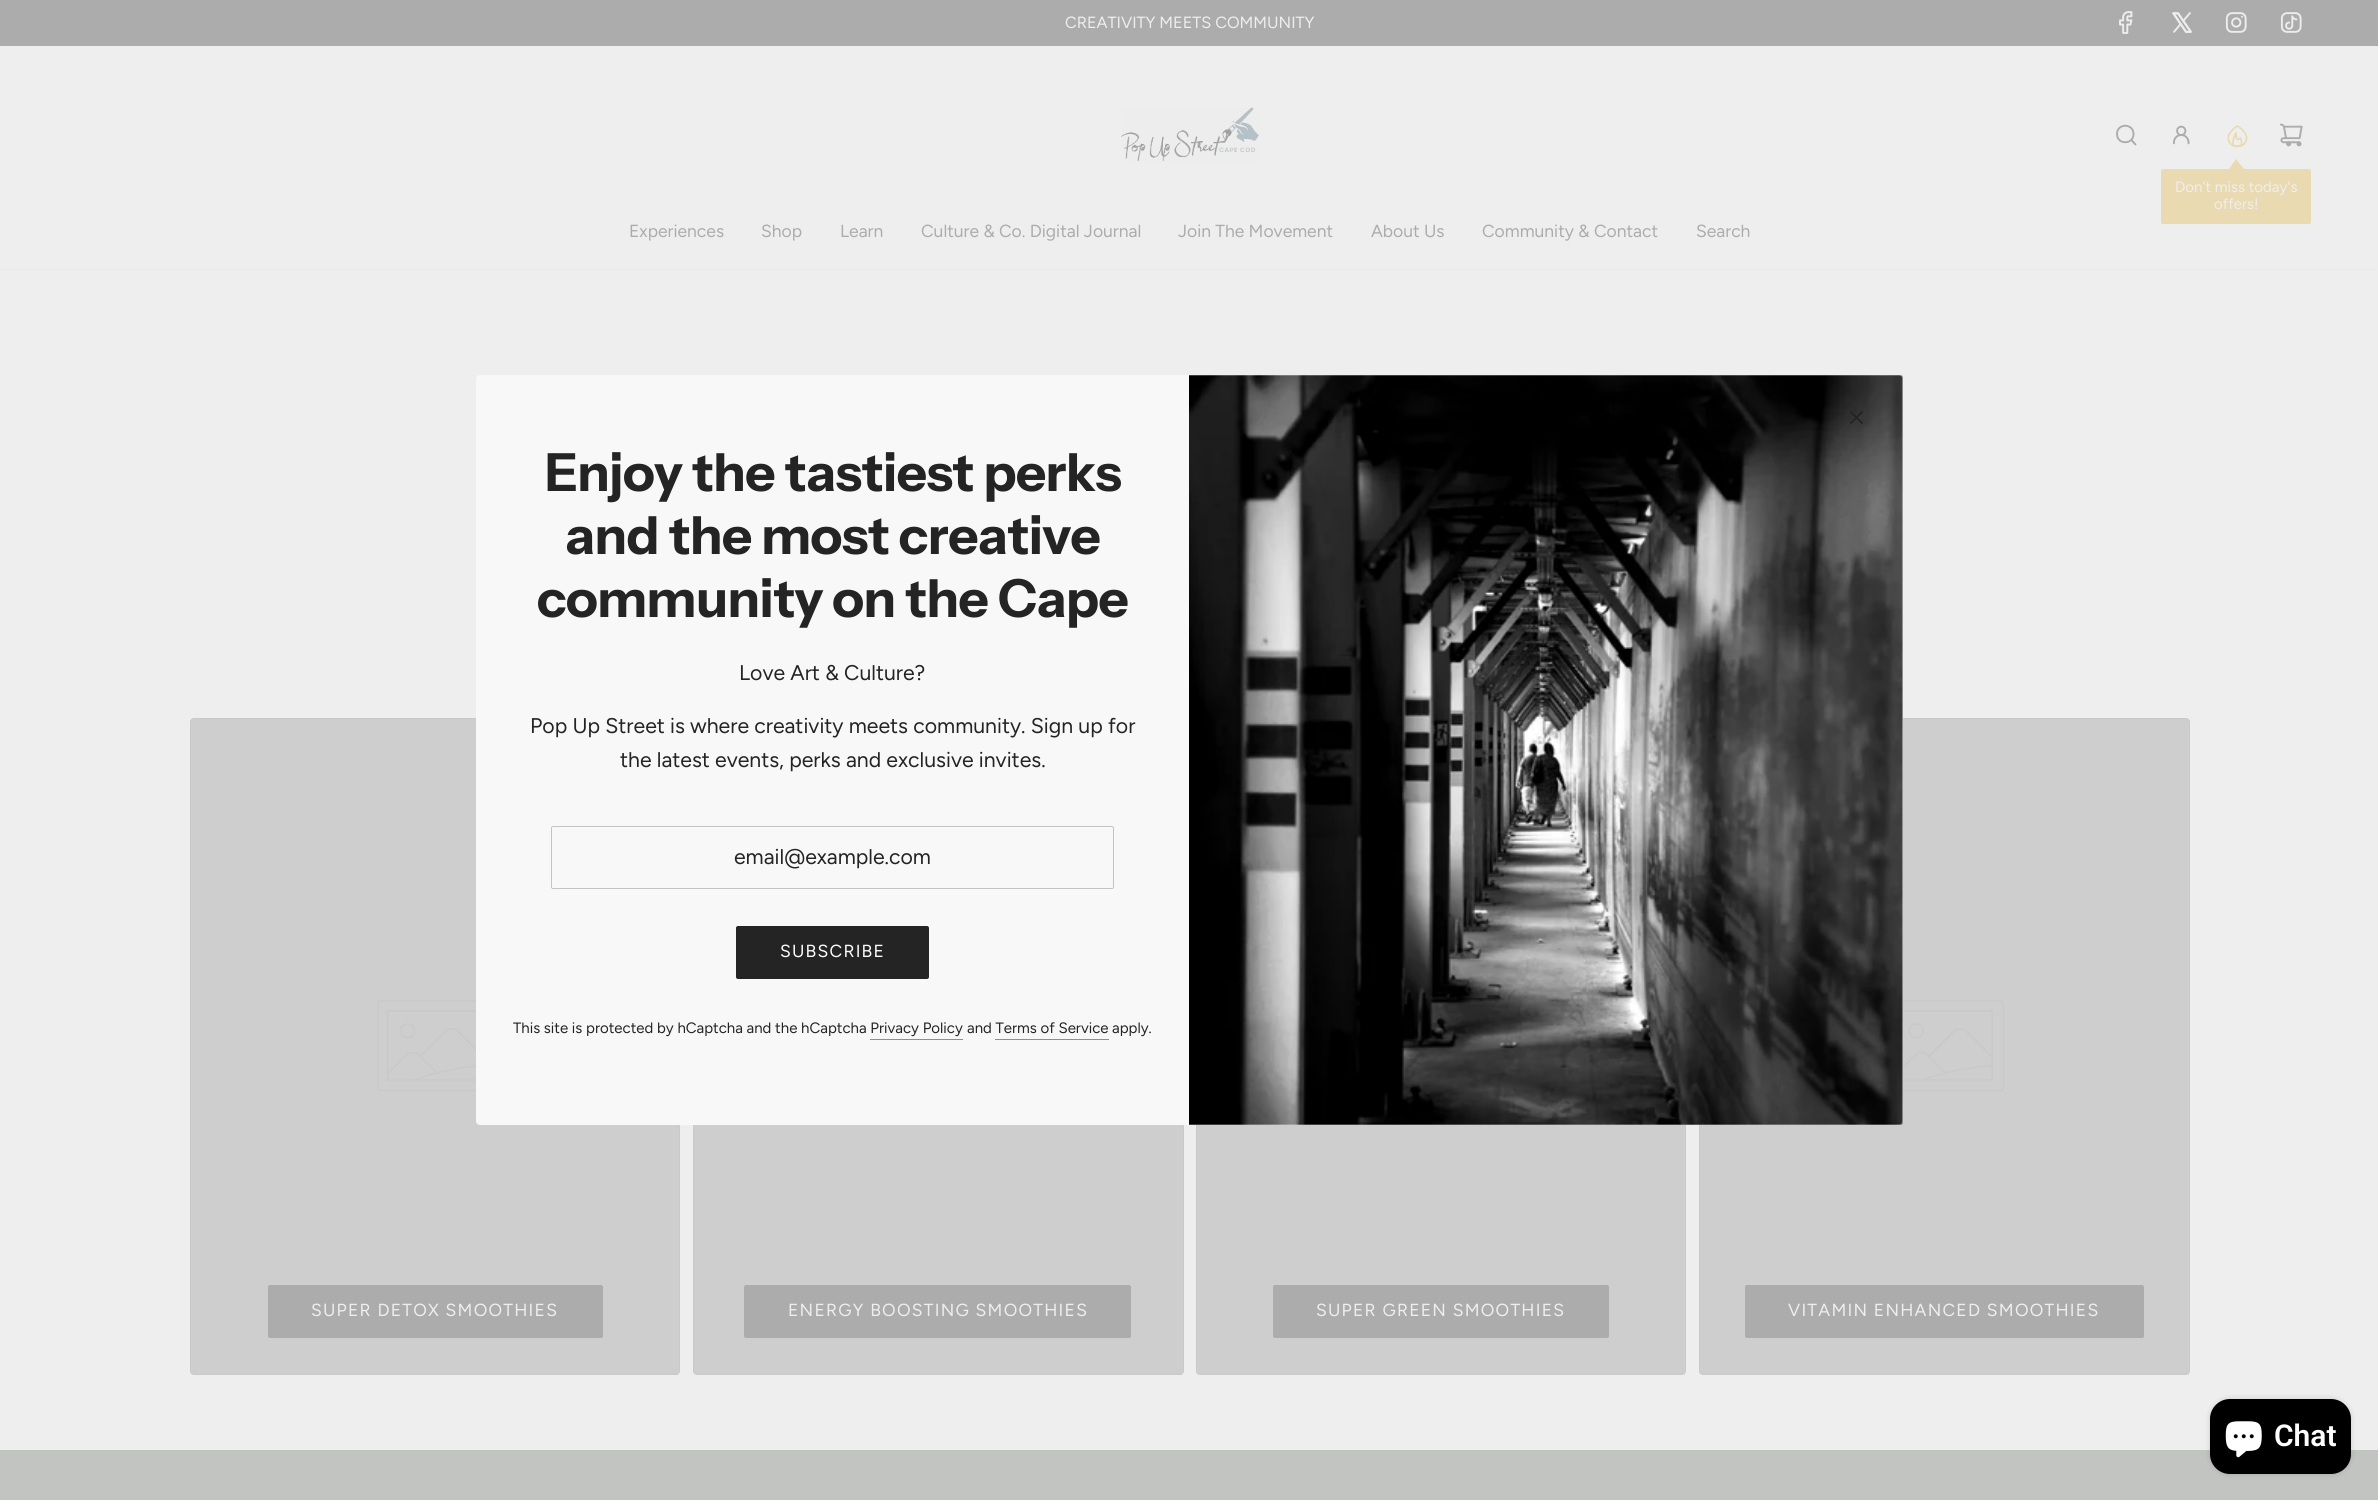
#include <cairo.h>
#include <math.h>
#include <stddef.h>

typedef struct { const char *family; double size; int italic, bold; unsigned color; } style_t;
static cairo_t *ctx;

static void ink(unsigned color) {
    cairo_set_source_rgb(ctx, (color >> 16) / 255.0, (color >> 8 & 255) / 255.0, (color & 255) / 255.0);
}

static void write(double x, double y, const char *s, const style_t *st) {
    cairo_select_font_face(ctx, st->family, st->italic ? CAIRO_FONT_SLANT_ITALIC : CAIRO_FONT_SLANT_NORMAL,
        st->bold ? CAIRO_FONT_WEIGHT_BOLD : CAIRO_FONT_WEIGHT_NORMAL);
    cairo_set_font_size(ctx, st->size);
    ink(st->color);
    cairo_move_to(ctx, x, y);
    cairo_show_text(ctx, s);
}

static void write_spaced(double x, double y, const char *s, double letter, double word) {
    cairo_move_to(ctx, x, y);
    while (*s) {
        char ch[5] = {0};
        int n = 0;
        do ch[n++] = *s++; while ((*s & 0xC0) == 0x80);
        cairo_show_text(ctx, ch);
        cairo_rel_move_to(ctx, letter + word * (*ch == ' '), 0);
    }
}

static void block(double x, double y, double w, double h, unsigned color) {
    ink(color);
    cairo_rectangle(ctx, x, y, w, h);
    cairo_fill(ctx);
}

static void round_path(double x, double y, double w, double h, double r) {
    cairo_new_sub_path(ctx);
    cairo_arc(ctx, x + w - r, y + h - r, r, 0, M_PI / 2);
    cairo_arc(ctx, x + r, y + h - r, r, M_PI / 2, M_PI);
    cairo_arc(ctx, x + r, y + r, r, M_PI, 1.5 * M_PI);
    cairo_arc(ctx, x + w - r, y + r, r, 1.5 * M_PI, 2 * M_PI);
    cairo_close_path(ctx);
}

static void blur_box(double x, double y, double w, double h, double r, double blur, double alpha) {
    cairo_push_group_with_content(ctx, CAIRO_CONTENT_ALPHA);
    cairo_set_operator(ctx, CAIRO_OPERATOR_SOURCE);
    for (int i = 15; i >= -15 && fmin(w, h) + blur * i / 3 > 0; i -= 2) {
        double e = blur * i / 6;
        cairo_set_source_rgba(ctx, 0, 0, 0, alpha * erfc((i - 1) / 8.5) / 2);
        round_path(x - e, y - e, w + 2 * e, h + 2 * e, fmax(0, fmin(r + e + blur * .6, fmin(w, h) / 2 + e)));
        cairo_fill(ctx);
    }
    cairo_pattern_t *soft = cairo_pop_group(ctx);
    cairo_mask(ctx, soft);
    cairo_pattern_destroy(soft);
}

static void paste(const char *path, double x, double y, double w, double h) {
    cairo_surface_t *image = cairo_image_surface_create_from_png(path);
    cairo_save(ctx);
    cairo_set_source_surface(ctx, image, x, y);
    cairo_rectangle(ctx, x, y, w, h);
    cairo_fill(ctx);
    cairo_restore(ctx);
    cairo_surface_destroy(image);
}

static const style_t s1 = {"Figtree", 16.25, 0, 0, 0xeeeeee};
static const style_t s2 = {"Figtree", 15, 0, 0, 0xeeeeee};
static const style_t s3 = {"Figtree", 17.5, 0, 0, 0xacacac};
static const style_t s4 = {"Figtree", 21.25, 0, 0, 0x242424};
static const style_t s5 = {"Figtree", 15, 0, 0, 0x242424};
static const style_t s6 = {"Roboto SemiBold", 30, 0, 0, 0xffffff};

int main(void) {
    cairo_surface_t *surface = cairo_image_surface_create(CAIRO_FORMAT_RGB24, 2378, 1500);
    ctx = cairo_create(surface);
    cairo_font_options_t *options = cairo_font_options_create();
    cairo_font_options_set_hint_metrics(options, CAIRO_HINT_METRICS_OFF);
    cairo_font_options_set_hint_style(options, CAIRO_HINT_STYLE_NONE);
    cairo_set_font_options(ctx, options);
    cairo_set_miter_limit(ctx, 4);
    ink(0xeeeeee);
    cairo_paint(ctx);
    block(0, 0, 2378, 46, 0xacacac);
    write(1065, 28, "CREATIVITY MEETS COMMUNITY", &s1);
    paste("pic1.png", 2119, 11, 14, 23);
    paste("pic2.png", 2172, 12, 20, 21);
    paste("pic3.png", 2225, 12, 22, 21);
    paste("pic4.png", 2280, 12, 22, 21);
    block(0, 269, 2378, 1, 0xe8e8e8);
    paste("pic5.png", 1121, 107, 138, 55);
    cairo_new_path(ctx);
    cairo_move_to(ctx, 2131.5, 140);
    cairo_line_to(ctx, 2135.5, 144.5);
    cairo_move_to(ctx, 2117, 134);
    cairo_curve_to(ctx, 2117, 145, 2133.5, 145, 2133.5, 134);
    cairo_curve_to(ctx, 2133.5, 123, 2117, 123, 2117, 134);
    cairo_close_path(ctx);
    ink(0xacacac);
    cairo_set_line_width(ctx, 1.9);
    cairo_set_line_cap(ctx, CAIRO_LINE_CAP_ROUND);
    cairo_set_line_join(ctx, CAIRO_LINE_JOIN_ROUND);
    cairo_stroke(ctx);
    paste("pic6.png", 2173, 125, 17, 20);
    paste("pic7.png", 2279, 123, 24, 24);
    paste("pic8.png", 2227, 125, 21, 23);
    ink(0xeadab1);
    round_path(2161, 169, 150, 55, 2);
    cairo_fill(ctx);
    cairo_new_path(ctx);
    cairo_move_to(ctx, 2244, 169);
    cairo_line_to(ctx, 2229, 169);
    cairo_line_to(ctx, 2236, 159);
    cairo_close_path(ctx);
    cairo_fill(ctx);
    write(2175, 192, "Don't miss today's", &s2);
    write(2214, 209, "offers!", &s2);
    write(629, 237, "Experiences", &s3);
    write(761, 237, "Shop", &s3);
    write(840, 237, "Learn", &s3);
    write(921, 237, "Culture & Co. Digital Journal", &s3);
    write(1178, 237, "Join The Movement", &s3);
    write(1371, 237, "About Us", &s3);
    write(1482, 237, "Community & Contact", &s3);
    write(1696, 237, "Search", &s3);
    ink(0xcecece);
    round_path(190.5, 718.5, 489, 656, 3.5);
    cairo_fill_preserve(ctx);
    ink(0xc9c9c9);
    cairo_set_line_width(ctx, 1);
    cairo_set_line_cap(ctx, CAIRO_LINE_CAP_BUTT);
    cairo_set_line_join(ctx, CAIRO_LINE_JOIN_MITER);
    cairo_stroke(ctx);
    paste("pic9.png", 377, 1000, 99, 92);
    ink(0xacacac);
    round_path(268, 1285, 335, 53, 2);
    cairo_fill(ctx);
    ink(0xeeeeee);
    write_spaced(311, 1316, "SUPER DETOX SMOOTHIES", 1.25, 0);
    ink(0xcecece);
    round_path(693.5, 718.5, 490, 656, 3.5);
    cairo_fill_preserve(ctx);
    ink(0xc9c9c9);
    cairo_stroke(ctx);
    ink(0xacacac);
    round_path(744, 1285, 387, 53, 2);
    cairo_fill(ctx);
    ink(0xeeeeee);
    write_spaced(788, 1316, "ENERGY BOOSTING SMOOTHIES", 1.25, 0);
    ink(0xcecece);
    round_path(1196.5, 718.5, 489, 656, 3.5);
    cairo_fill_preserve(ctx);
    ink(0xc9c9c9);
    cairo_stroke(ctx);
    ink(0xacacac);
    round_path(1273, 1285, 336, 53, 2);
    cairo_fill(ctx);
    ink(0xeeeeee);
    write_spaced(1316, 1316, "SUPER GREEN SMOOTHIES", 1.25, 0);
    ink(0xcecece);
    round_path(1699.5, 718.5, 490, 656, 3.5);
    cairo_fill_preserve(ctx);
    ink(0xc9c9c9);
    cairo_stroke(ctx);
    paste("pic10.png", 1903, 1000, 101, 92);
    ink(0xacacac);
    round_path(1745, 1285, 399, 53, 2);
    cairo_fill(ctx);
    ink(0xeeeeee);
    write_spaced(1788, 1316, "VITAMIN ENHANCED SMOOTHIES", 1.25, 0);
    ink(0xf8f8f8);
    round_path(476, 375, 1427, 750, 4);
    cairo_fill(ctx);
    paste("pic11.png", 1189, 375, 714, 750);
    cairo_new_path(ctx);
    cairo_move_to(ctx, 1851, 423);
    cairo_line_to(ctx, 1856.5, 417.5);
    cairo_line_to(ctx, 1862, 423);
    cairo_move_to(ctx, 1862, 412);
    cairo_line_to(ctx, 1856.5, 417.5);
    cairo_line_to(ctx, 1851, 412);
    ink(0x242424);
    cairo_set_line_width(ctx, 1.9);
    cairo_set_line_cap(ctx, CAIRO_LINE_CAP_ROUND);
    cairo_set_line_join(ctx, CAIRO_LINE_JOIN_ROUND);
    cairo_stroke(ctx);
    cairo_select_font_face(ctx, "Instrument Sans", CAIRO_FONT_SLANT_NORMAL, CAIRO_FONT_WEIGHT_BOLD);
    cairo_set_font_size(ctx, 52.5);
    write_spaced(545, 491, "Enjoy the tastiest perks", -0.5, 0);
    write_spaced(565, 554, "and the most creative", -0.5, 0);
    write_spaced(537, 617, "community on the Cape", -0.5, 0);
    write(739, 680, "Love Art & Culture?", &s4);
    write(530, 733, "Pop Up Street is where creativity meets community. Sign up for", &s4);
    write(620, 767, "the latest events, perks and exclusive invites.", &s4);
    round_path(551.5, 826.5, 562, 62, 1.5);
    ink(0xc3c3c3);
    cairo_set_line_width(ctx, 1);
    cairo_set_line_cap(ctx, CAIRO_LINE_CAP_BUTT);
    cairo_set_line_join(ctx, CAIRO_LINE_JOIN_MITER);
    cairo_stroke(ctx);
    write(734, 864, "email@example.com", &s4);
    round_path(736, 926, 193, 53, 2);
    cairo_fill(ctx);
    cairo_set_font_size(ctx, 17.5);
    ink(0xffffff);
    write_spaced(780, 957, "SUBSCRIBE", 1.25, 0);
    write(513, 1033, "This site is protected by hCaptcha and the hCaptcha Privacy Policy", &s5);
    write(967, 1033, "and Terms of Service", &s5);
    write(1112, 1033, "apply.", &s5);
    block(870, 1039, 93, 1, 0x8e8e8e);
    block(995, 1039, 114, 1, 0x8e8e8e);
    block(0, 1450, 2378, 50, 0xc1c4c1);
    ink(0x000000);
    blur_box(2210, 1399, 141, 75, 20, 3, 0.15);
    ink(0x000000);
    round_path(2210, 1399, 141, 75, 20);
    cairo_fill(ctx);
    paste("pic12.png", 2225, 1421, 37, 37);
    write(2274, 1446, "Chat", &s6);
    cairo_surface_write_to_png(surface, "screenshot.png");
    cairo_font_options_destroy(options);
    cairo_destroy(ctx);
    cairo_surface_destroy(surface);
    return 0;
}
